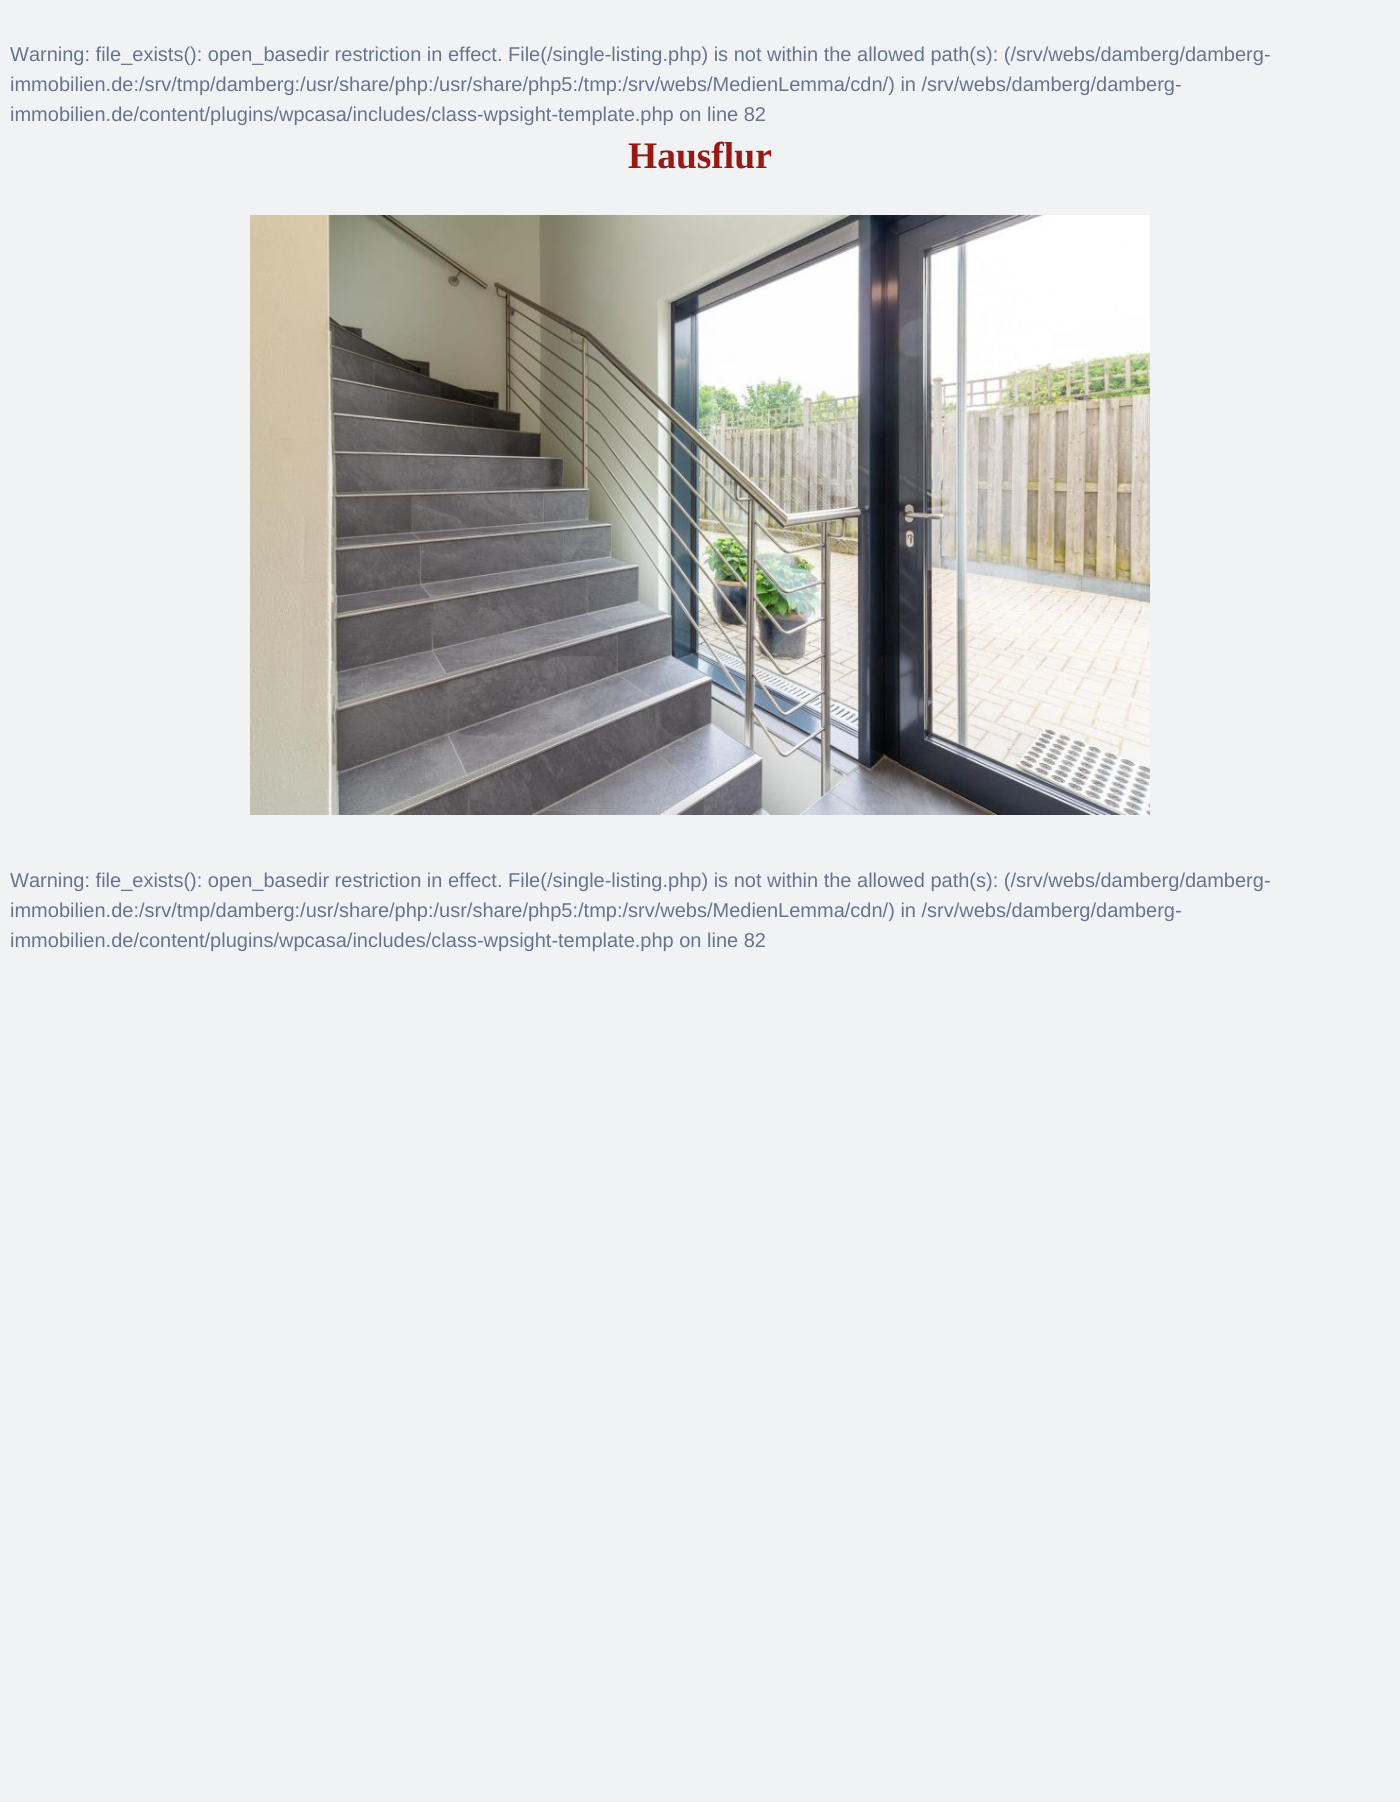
#include <cairo.h>
#include <math.h>
#include <stddef.h>

typedef struct { const char *family; double size; int italic, bold; unsigned color; } style_t;
static cairo_t *ctx;

static void ink(unsigned color) {
    cairo_set_source_rgb(ctx, (color >> 16) / 255.0, (color >> 8 & 255) / 255.0, (color & 255) / 255.0);
}

static void write(double x, double y, const char *s, const style_t *st) {
    cairo_select_font_face(ctx, st->family, st->italic ? CAIRO_FONT_SLANT_ITALIC : CAIRO_FONT_SLANT_NORMAL,
        st->bold ? CAIRO_FONT_WEIGHT_BOLD : CAIRO_FONT_WEIGHT_NORMAL);
    cairo_set_font_size(ctx, st->size);
    ink(st->color);
    cairo_move_to(ctx, x, y);
    cairo_show_text(ctx, s);
}

static void paste(const char *path, double x, double y, double w, double h) {
    cairo_surface_t *image = cairo_image_surface_create_from_png(path);
    cairo_save(ctx);
    cairo_set_source_surface(ctx, image, x, y);
    cairo_rectangle(ctx, x, y, w, h);
    cairo_fill(ctx);
    cairo_restore(ctx);
    cairo_surface_destroy(image);
}

static const style_t s1 = {"Liberation Sans", 20, 0, 0, 0x68748d};
static const style_t s2 = {"Liberation Serif", 37.5, 0, 1, 0x991814};

int main(void) {
    cairo_surface_t *surface = cairo_image_surface_create(CAIRO_FORMAT_RGB24, 1400, 1802);
    ctx = cairo_create(surface);
    cairo_font_options_t *options = cairo_font_options_create();
    cairo_font_options_set_hint_metrics(options, CAIRO_HINT_METRICS_OFF);
    cairo_font_options_set_hint_style(options, CAIRO_HINT_STYLE_NONE);
    cairo_set_font_options(ctx, options);
    cairo_set_miter_limit(ctx, 4);
    ink(0xf0f2f4);
    cairo_paint(ctx);
    write(10, 61, "Warning: file_exists(): open_basedir restriction in effect. File(/single-listing.php) is not within the allowed path(s): (/srv/webs/damberg/damberg-", &s1);
    write(10, 91, "immobilien.de:/srv/tmp/damberg:/usr/share/php:/usr/share/php5:/tmp:/srv/webs/MedienLemma/cdn/) in /srv/webs/damberg/damberg-", &s1);
    write(10, 121, "immobilien.de/content/plugins/wpcasa/includes/class-wpsight-template.php on line 82", &s1);
    write(628, 168, "Hausflur", &s2);
    paste("pic1.png", 250, 215, 900, 600);
    write(10, 887, "Warning: file_exists(): open_basedir restriction in effect. File(/single-listing.php) is not within the allowed path(s): (/srv/webs/damberg/damberg-", &s1);
    write(10, 917, "immobilien.de:/srv/tmp/damberg:/usr/share/php:/usr/share/php5:/tmp:/srv/webs/MedienLemma/cdn/) in /srv/webs/damberg/damberg-", &s1);
    write(10, 947, "immobilien.de/content/plugins/wpcasa/includes/class-wpsight-template.php on line 82", &s1);
    cairo_surface_write_to_png(surface, "screenshot.png");
    cairo_font_options_destroy(options);
    cairo_destroy(ctx);
    cairo_surface_destroy(surface);
    return 0;
}
